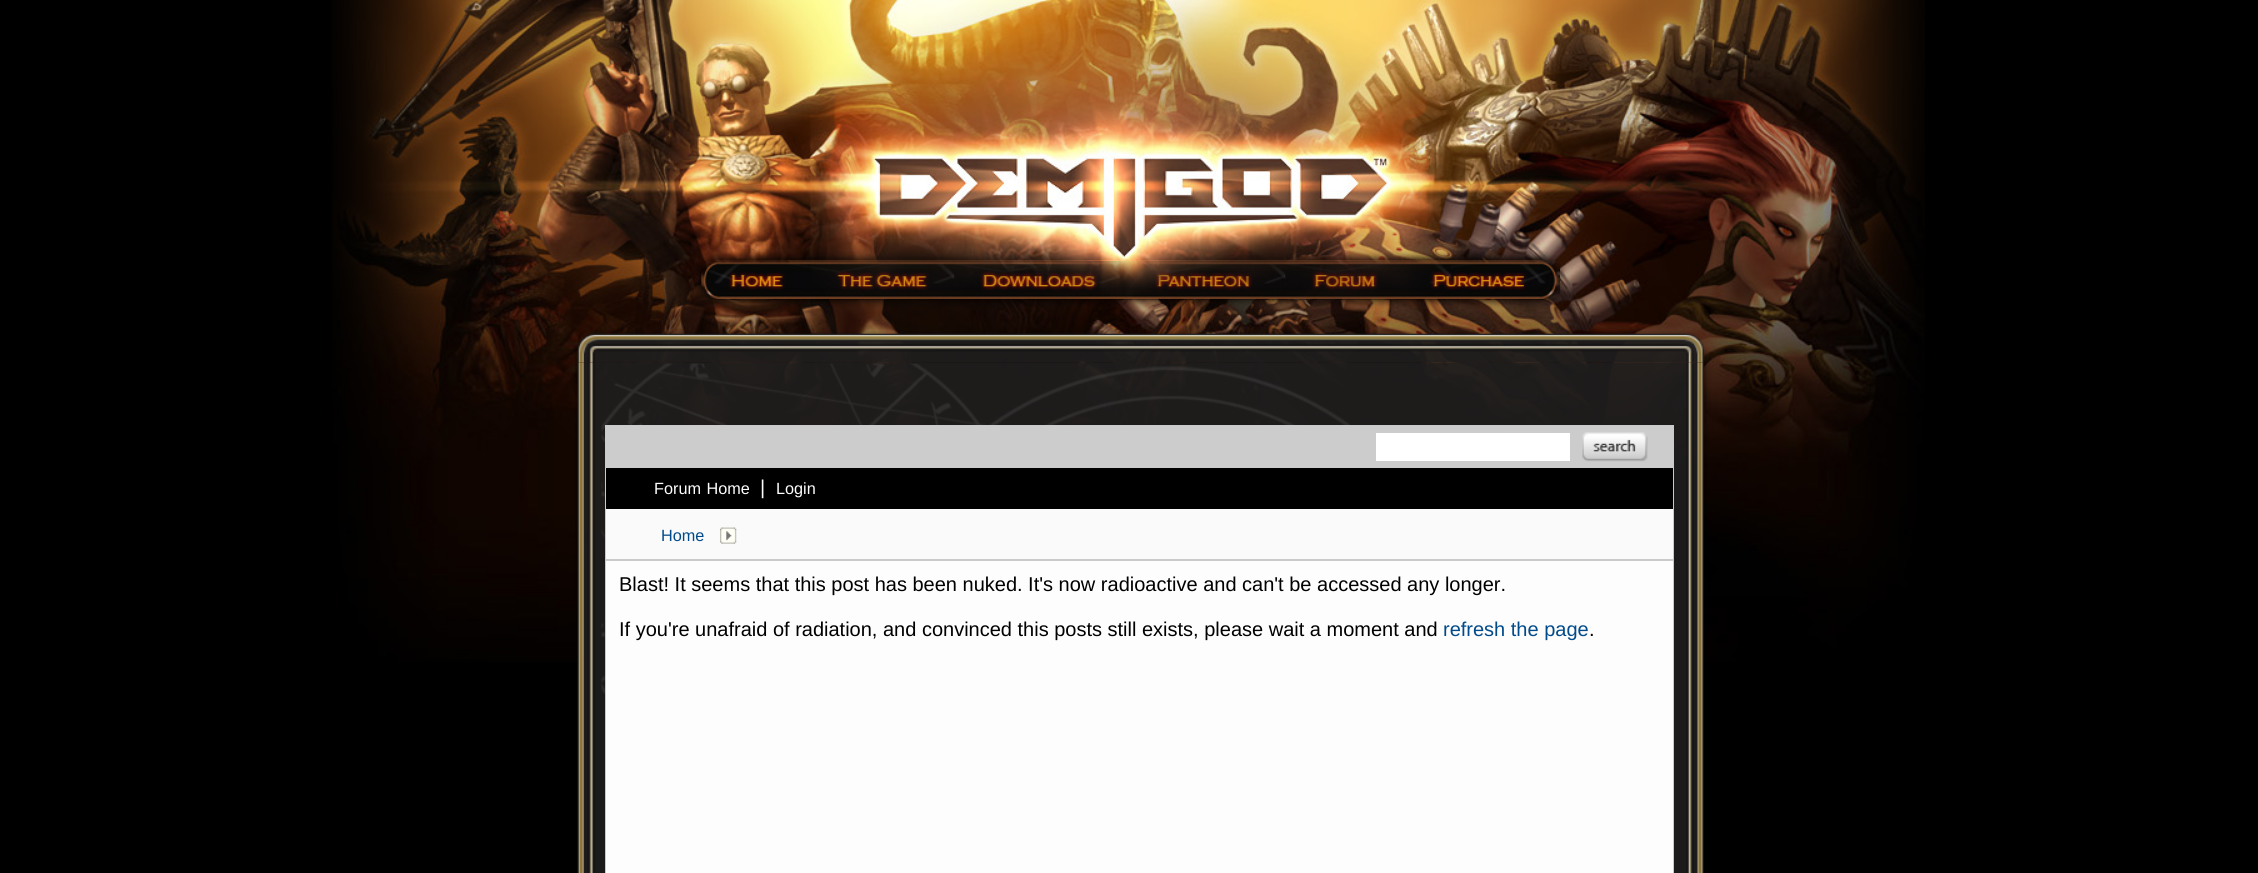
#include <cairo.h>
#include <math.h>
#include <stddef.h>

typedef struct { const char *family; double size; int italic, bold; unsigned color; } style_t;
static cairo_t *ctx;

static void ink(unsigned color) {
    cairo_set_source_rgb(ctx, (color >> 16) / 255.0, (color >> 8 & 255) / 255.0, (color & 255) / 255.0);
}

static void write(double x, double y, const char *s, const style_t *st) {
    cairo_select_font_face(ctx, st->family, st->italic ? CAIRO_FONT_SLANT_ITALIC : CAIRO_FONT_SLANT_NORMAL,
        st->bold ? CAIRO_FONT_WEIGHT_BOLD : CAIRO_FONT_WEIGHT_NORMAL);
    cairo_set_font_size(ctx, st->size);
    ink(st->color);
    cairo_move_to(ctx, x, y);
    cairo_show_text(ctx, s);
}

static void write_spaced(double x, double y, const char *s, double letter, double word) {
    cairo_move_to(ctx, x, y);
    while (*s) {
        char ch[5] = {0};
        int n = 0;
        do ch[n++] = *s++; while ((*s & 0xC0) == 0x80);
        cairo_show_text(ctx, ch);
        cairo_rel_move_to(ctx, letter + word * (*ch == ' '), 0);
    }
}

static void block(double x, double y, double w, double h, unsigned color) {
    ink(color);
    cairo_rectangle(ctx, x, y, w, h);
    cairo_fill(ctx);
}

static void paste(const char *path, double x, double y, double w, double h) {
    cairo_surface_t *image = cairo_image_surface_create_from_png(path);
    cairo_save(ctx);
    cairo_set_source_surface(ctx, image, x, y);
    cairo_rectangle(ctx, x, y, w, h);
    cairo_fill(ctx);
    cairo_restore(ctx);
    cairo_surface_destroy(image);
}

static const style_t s1 = {"Liberation Sans", 20, 0, 0, 0xfdfdfd};
static const style_t s2 = {"Liberation Sans", 16.25, 0, 0, 0xfdfdfd};
static const style_t s3 = {"Liberation Sans", 16.25, 0, 0, 0x014b8a};
static const style_t s4 = {"Liberation Sans", 20, 0, 0, 0x000000};
static const style_t s5 = {"Liberation Sans", 20, 0, 0, 0x014b8a};

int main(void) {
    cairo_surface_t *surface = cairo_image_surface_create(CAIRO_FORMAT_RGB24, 2258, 873);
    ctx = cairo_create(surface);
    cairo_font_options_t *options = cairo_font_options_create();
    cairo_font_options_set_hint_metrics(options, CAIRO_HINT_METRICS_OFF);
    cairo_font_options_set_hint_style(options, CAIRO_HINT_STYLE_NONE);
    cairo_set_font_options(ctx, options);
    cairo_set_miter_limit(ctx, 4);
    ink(0x000000);
    cairo_paint(ctx);
    paste("pic1.png", 332, 0, 1593, 662);
    paste("pic2.png", 702, 261, 858, 39);
    paste("pic3.png", 702, 261, 107, 34);
    paste("pic4.png", 809, 261, 143, 26);
    paste("pic5.png", 952, 261, 171, 39);
    paste("pic6.png", 1124, 261, 160, 39);
    paste("pic7.png", 1284, 261, 118, 39);
    paste("pic8.png", 1403, 261, 156, 39);
    paste("pic9.png", 575, 331, 1132, 32);
    paste("pic10.png", 575, 362, 1132, 511);
    paste("pic11.png", 601, 363, 749, 331);
    block(606, 561, 1067, 312, 0xfdfdfd);
    cairo_rectangle(ctx, 605.5, 425.5, 1068, 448);
    ink(0xcacacc);
    cairo_set_line_width(ctx, 1);
    cairo_stroke(ctx);
    block(606, 426, 1067, 42, 0xcccccc);
    block(1376, 433, 194, 28, 0xffffff);
    paste("pic12.png", 1582, 432, 66, 30);
    block(606, 468, 1067, 41, 0x000000);
    cairo_select_font_face(ctx, "Liberation Sans", CAIRO_FONT_SLANT_NORMAL, CAIRO_FONT_WEIGHT_NORMAL);
    cairo_set_font_size(ctx, 16.25);
    ink(0xfdfdfd);
    write_spaced(654, 494, "Forum Home", 0, 1);
    write(760, 494, "|", &s1);
    write(776, 494, "Login", &s2);
    block(606, 509, 1067, 50, 0xfafafa);
    write(661, 541, "Home", &s3);
    paste("pic13.png", 720, 527, 17, 17);
    block(606, 559, 1067, 2, 0xcacacc);
    write(619, 591, "Blast! It seems that this post has been nuked. It's now radioactive and can't be accessed any longer.", &s4);
    write(619, 636, "If you're unafraid of radiation, and convinced this posts still exists, please wait a moment and", &s4);
    write(1443, 636, "refresh the page", &s5);
    write(1589, 636, ".", &s4);
    cairo_surface_write_to_png(surface, "screenshot.png");
    cairo_font_options_destroy(options);
    cairo_destroy(ctx);
    cairo_surface_destroy(surface);
    return 0;
}
